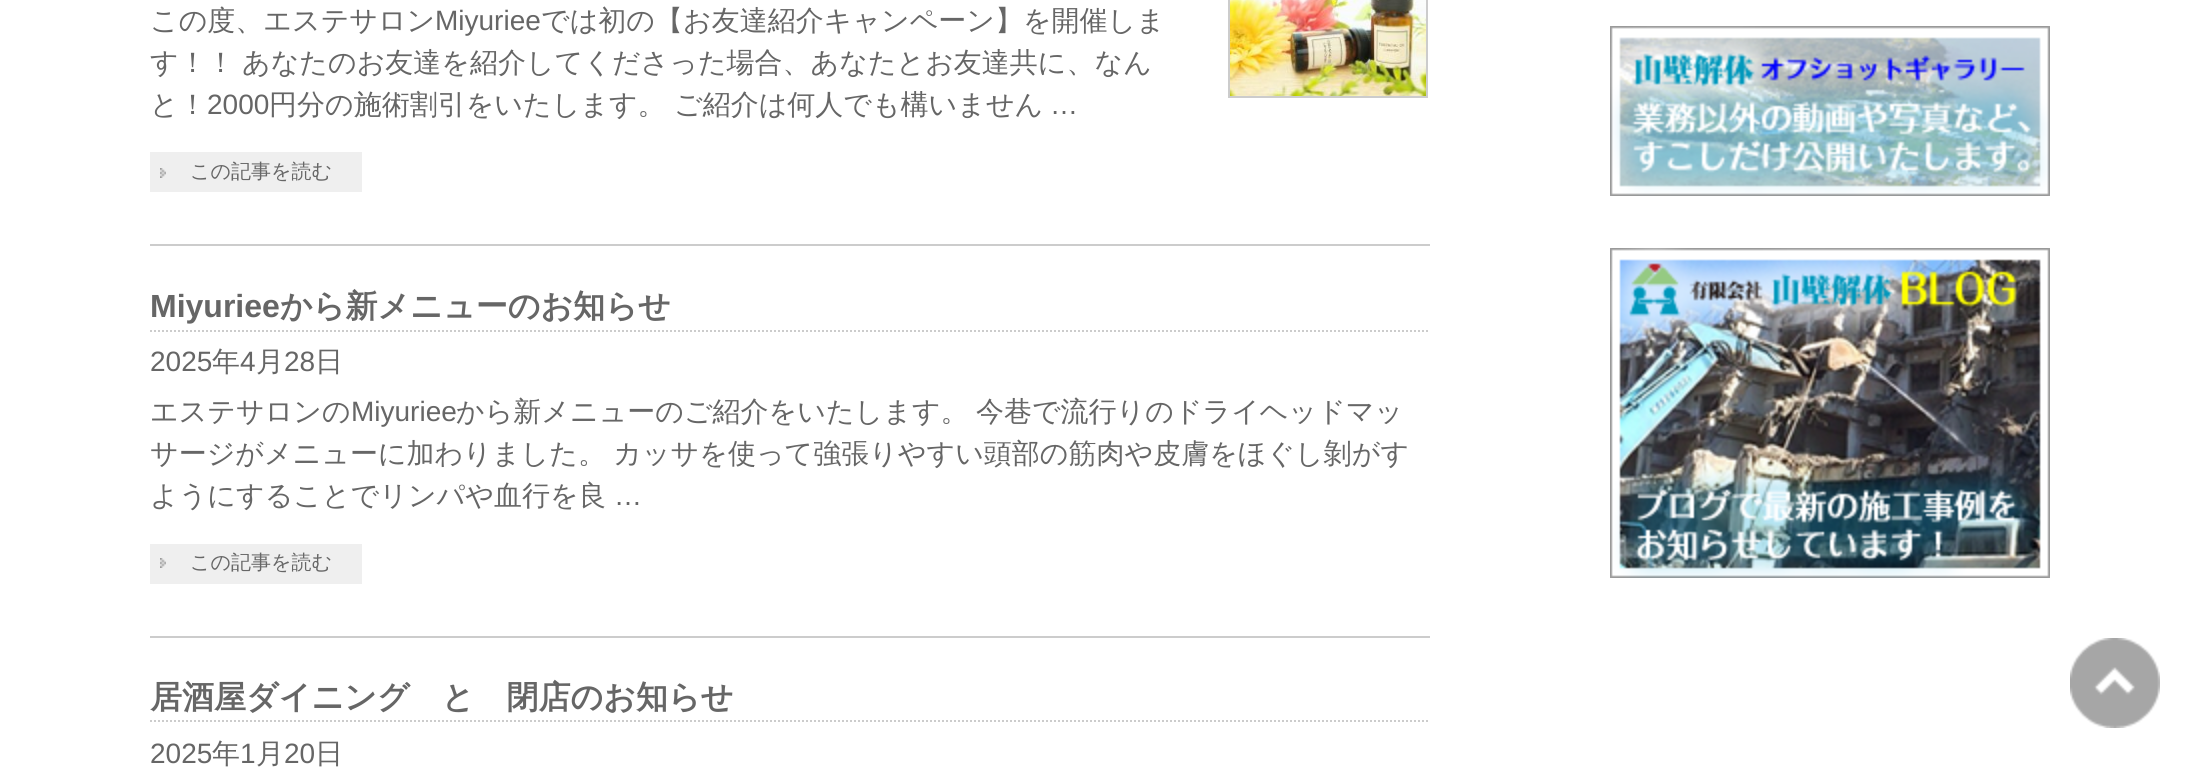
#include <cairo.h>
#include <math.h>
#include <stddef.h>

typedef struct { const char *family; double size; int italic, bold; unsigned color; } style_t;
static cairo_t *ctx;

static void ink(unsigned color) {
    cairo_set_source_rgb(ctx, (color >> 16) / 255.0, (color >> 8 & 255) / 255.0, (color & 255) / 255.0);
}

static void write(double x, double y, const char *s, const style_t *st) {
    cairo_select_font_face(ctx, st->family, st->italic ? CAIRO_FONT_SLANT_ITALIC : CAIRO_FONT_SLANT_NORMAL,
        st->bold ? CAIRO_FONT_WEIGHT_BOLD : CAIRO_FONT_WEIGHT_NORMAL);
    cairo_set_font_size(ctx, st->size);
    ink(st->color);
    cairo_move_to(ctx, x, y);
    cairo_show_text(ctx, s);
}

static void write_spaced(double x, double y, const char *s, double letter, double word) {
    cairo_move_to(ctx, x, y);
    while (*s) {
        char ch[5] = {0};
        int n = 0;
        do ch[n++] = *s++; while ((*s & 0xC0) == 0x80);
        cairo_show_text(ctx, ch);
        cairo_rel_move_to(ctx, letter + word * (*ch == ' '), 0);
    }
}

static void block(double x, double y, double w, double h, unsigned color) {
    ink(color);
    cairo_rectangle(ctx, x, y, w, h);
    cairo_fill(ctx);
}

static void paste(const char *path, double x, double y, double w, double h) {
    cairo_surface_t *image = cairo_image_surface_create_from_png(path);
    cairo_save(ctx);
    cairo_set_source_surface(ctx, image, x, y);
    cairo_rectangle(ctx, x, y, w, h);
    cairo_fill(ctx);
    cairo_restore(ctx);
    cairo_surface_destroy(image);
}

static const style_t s1 = {"WenQuanYi Zen Hei Medium", 28, 0, 0, 0x666666};
static const style_t s2 = {"Liberation Sans", 28, 0, 0, 0x666666};
static const style_t s3 = {"WenQuanYi Zen Hei Medium", 20, 0, 0, 0x666666};
static const style_t s4 = {"Liberation Sans", 32, 0, 1, 0x666666};
static const style_t s5 = {"WenQuanYi Zen Hei", 32, 0, 1, 0x666666};

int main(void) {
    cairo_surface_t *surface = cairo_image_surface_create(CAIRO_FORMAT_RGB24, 2200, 767);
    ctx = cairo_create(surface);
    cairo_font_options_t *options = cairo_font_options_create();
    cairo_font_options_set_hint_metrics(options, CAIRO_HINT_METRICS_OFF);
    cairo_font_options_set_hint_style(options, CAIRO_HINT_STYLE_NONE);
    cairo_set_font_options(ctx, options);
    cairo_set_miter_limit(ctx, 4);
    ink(0xffffff);
    cairo_paint(ctx);
    block(150, 244, 1280, 2, 0xcccccc);
    write(150, 30, "この度、エステサロン", &s1);
    write(435, 30, "Miyuriee", &s2);
    write(541, 30, "では初の【お友達紹介キャンペーン】を開催しま", &s1);
    write_spaced(150, 72, "す！！ あなたのお友達を紹介してくださった場合、あなたとお友達共に、なん", 0, -1);
    write(150, 114, "と！", &s1);
    write(207, 114, "2000", &s2);
    write(269, 114, "円分の施術割引をいたします。 ご紹介は何人でも構いません", &s1);
    write(1050, 114, "…", &s2);
    block(150, 152, 212, 40, 0xefefef);
    paste("pic1.png", 160, 168, 6, 10);
    write(190, 178, "この記事を読む", &s3);
    cairo_rectangle(ctx, 1229, -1, 198, 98);
    ink(0xcccccc);
    cairo_stroke(ctx);
    paste("pic2.png", 1230, 0, 196, 96);
    block(150, 636, 1280, 2, 0xcccccc);
    cairo_new_path(ctx);
    cairo_move_to(ctx, 150, 331);
    cairo_line_to(ctx, 1430, 331);
    cairo_set_dash(ctx, (double[]){2, 2}, 2, 0);
    cairo_stroke(ctx);
    write(150, 317, "Miyuriee", &s4);
    write(280, 317, "から新メニューのお知らせ", &s5);
    write(150, 371, "2025", &s2);
    write(212, 371, "年", &s1);
    write(240, 371, "4", &s2);
    write(256, 371, "月", &s1);
    write(284, 371, "28", &s2);
    write(315, 371, "日", &s1);
    write(150, 421, "エステサロンの", &s1);
    write(351, 421, "Miyuriee", &s2);
    cairo_select_font_face(ctx, "WenQuanYi Zen Hei Medium", CAIRO_FONT_SLANT_NORMAL, CAIRO_FONT_WEIGHT_NORMAL);
    write_spaced(456, 421, "から新メニューのご紹介をいたします。 今巷で流行りのドライヘッドマッ", 0, -1);
    write_spaced(150, 463, "サージがメニューに加わりました。 カッサを使って強張りやすい頭部の筋肉や皮膚をほぐし剝がす", 0, -1);
    write(150, 505, "ようにすることでリンパや血行を良", &s1);
    write(614, 505, "…", &s2);
    block(150, 544, 212, 40, 0xefefef);
    paste("pic1.png", 160, 558, 6, 10);
    write(190, 569, "この記事を読む", &s3);
    cairo_new_path(ctx);
    cairo_move_to(ctx, 150, 721);
    cairo_line_to(ctx, 1430, 721);
    ink(0xcccccc);
    cairo_stroke(ctx);
    write(150, 708, "居酒屋ダイニング　と　閉店のお知らせ", &s5);
    write(150, 763, "2025", &s2);
    write(212, 763, "年", &s1);
    write(240, 763, "1", &s2);
    write(256, 763, "月", &s1);
    write(284, 763, "20", &s2);
    write(315, 763, "日", &s1);
    paste("pic3.png", 1610, 26, 440, 170);
    paste("pic4.png", 1610, 248, 440, 330);
    paste("pic5.png", 2070, 638, 90, 90);
    cairo_surface_write_to_png(surface, "screenshot.png");
    cairo_font_options_destroy(options);
    cairo_destroy(ctx);
    cairo_surface_destroy(surface);
    return 0;
}
